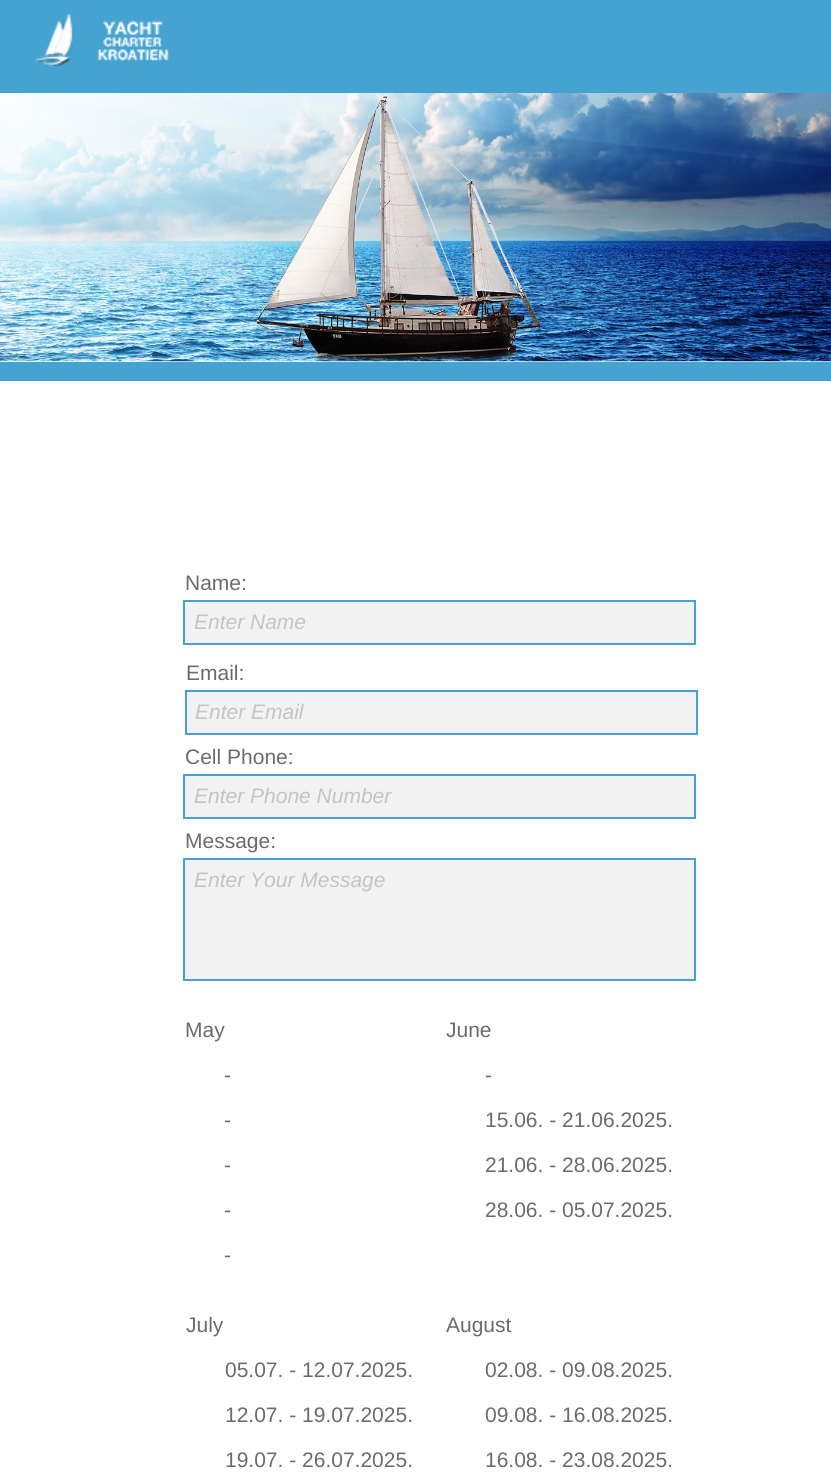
#include <cairo.h>
#include <math.h>
#include <stddef.h>

typedef struct { const char *family; double size; int italic, bold; unsigned color; } style_t;
static cairo_t *ctx;

static void ink(unsigned color) {
    cairo_set_source_rgb(ctx, (color >> 16) / 255.0, (color >> 8 & 255) / 255.0, (color & 255) / 255.0);
}

static void write(double x, double y, const char *s, const style_t *st) {
    cairo_select_font_face(ctx, st->family, st->italic ? CAIRO_FONT_SLANT_ITALIC : CAIRO_FONT_SLANT_NORMAL,
        st->bold ? CAIRO_FONT_WEIGHT_BOLD : CAIRO_FONT_WEIGHT_NORMAL);
    cairo_set_font_size(ctx, st->size);
    ink(st->color);
    cairo_move_to(ctx, x, y);
    cairo_show_text(ctx, s);
}

static void block(double x, double y, double w, double h, unsigned color) {
    ink(color);
    cairo_rectangle(ctx, x, y, w, h);
    cairo_fill(ctx);
}

static void paste(const char *path, double x, double y, double w, double h) {
    cairo_surface_t *image = cairo_image_surface_create_from_png(path);
    cairo_save(ctx);
    cairo_set_source_surface(ctx, image, x, y);
    cairo_rectangle(ctx, x, y, w, h);
    cairo_fill(ctx);
    cairo_restore(ctx);
    cairo_surface_destroy(image);
}

static const style_t s1 = {"Liberation Sans", 21, 0, 0, 0x6b6b6b};
static const style_t s2 = {"Liberation Sans", 21, 1, 0, 0xc4c4c4};

int main(void) {
    cairo_surface_t *surface = cairo_image_surface_create(CAIRO_FORMAT_RGB24, 831, 1484);
    ctx = cairo_create(surface);
    cairo_font_options_t *options = cairo_font_options_create();
    cairo_font_options_set_hint_metrics(options, CAIRO_HINT_METRICS_OFF);
    cairo_font_options_set_hint_style(options, CAIRO_HINT_STYLE_NONE);
    cairo_set_font_options(ctx, options);
    cairo_set_miter_limit(ctx, 4);
    ink(0xffffff);
    cairo_paint(ctx);
    block(0, 0, 831, 93, 0x45a2d1);
    paste("pic1.png", 34, 13, 135, 54);
    paste("pic2.png", 0, 93, 831, 269);
    block(0, 362, 831, 19, 0x45a2d1);
    write(185, 590, "Name:", &s1);
    ink(0xf2f2f2);
    cairo_rectangle(ctx, 184, 601, 511, 43);
    cairo_fill_preserve(ctx);
    ink(0x45a2d1);
    cairo_stroke(ctx);
    write(194, 629, "Enter Name", &s2);
    write(186, 680, "Email:", &s1);
    ink(0xf2f2f2);
    cairo_rectangle(ctx, 186, 691, 511, 43);
    cairo_fill_preserve(ctx);
    ink(0x45a2d1);
    cairo_stroke(ctx);
    write(195, 719, "Enter Email", &s2);
    write(185, 764, "Cell Phone:", &s1);
    ink(0xf2f2f2);
    cairo_rectangle(ctx, 184, 775, 511, 43);
    cairo_fill_preserve(ctx);
    ink(0x45a2d1);
    cairo_stroke(ctx);
    write(194, 803, "Enter Phone Number", &s2);
    write(185, 848, "Message:", &s1);
    ink(0xf2f2f2);
    cairo_rectangle(ctx, 184, 859, 511, 121);
    cairo_fill_preserve(ctx);
    ink(0x45a2d1);
    cairo_stroke(ctx);
    write(194, 887, "Enter Your Message", &s2);
    write(185, 1037, "May", &s1);
    write(224, 1082, "-", &s1);
    write(224, 1127, "-", &s1);
    write(224, 1172, "-", &s1);
    write(224, 1217, "-", &s1);
    write(224, 1262, "-", &s1);
    write(446, 1037, "June", &s1);
    write(485, 1082, "-", &s1);
    write(485, 1127, "15.06. - 21.06.2025.", &s1);
    write(485, 1172, "21.06. - 28.06.2025.", &s1);
    write(485, 1217, "28.06. - 05.07.2025.", &s1);
    write(186, 1332, "July", &s1);
    write(225, 1377, "05.07. - 12.07.2025.", &s1);
    write(225, 1422, "12.07. - 19.07.2025.", &s1);
    write(225, 1467, "19.07. - 26.07.2025.", &s1);
    write(446, 1332, "August", &s1);
    write(485, 1377, "02.08. - 09.08.2025.", &s1);
    write(485, 1422, "09.08. - 16.08.2025.", &s1);
    write(485, 1467, "16.08. - 23.08.2025.", &s1);
    cairo_surface_write_to_png(surface, "screenshot.png");
    cairo_font_options_destroy(options);
    cairo_destroy(ctx);
    cairo_surface_destroy(surface);
    return 0;
}
